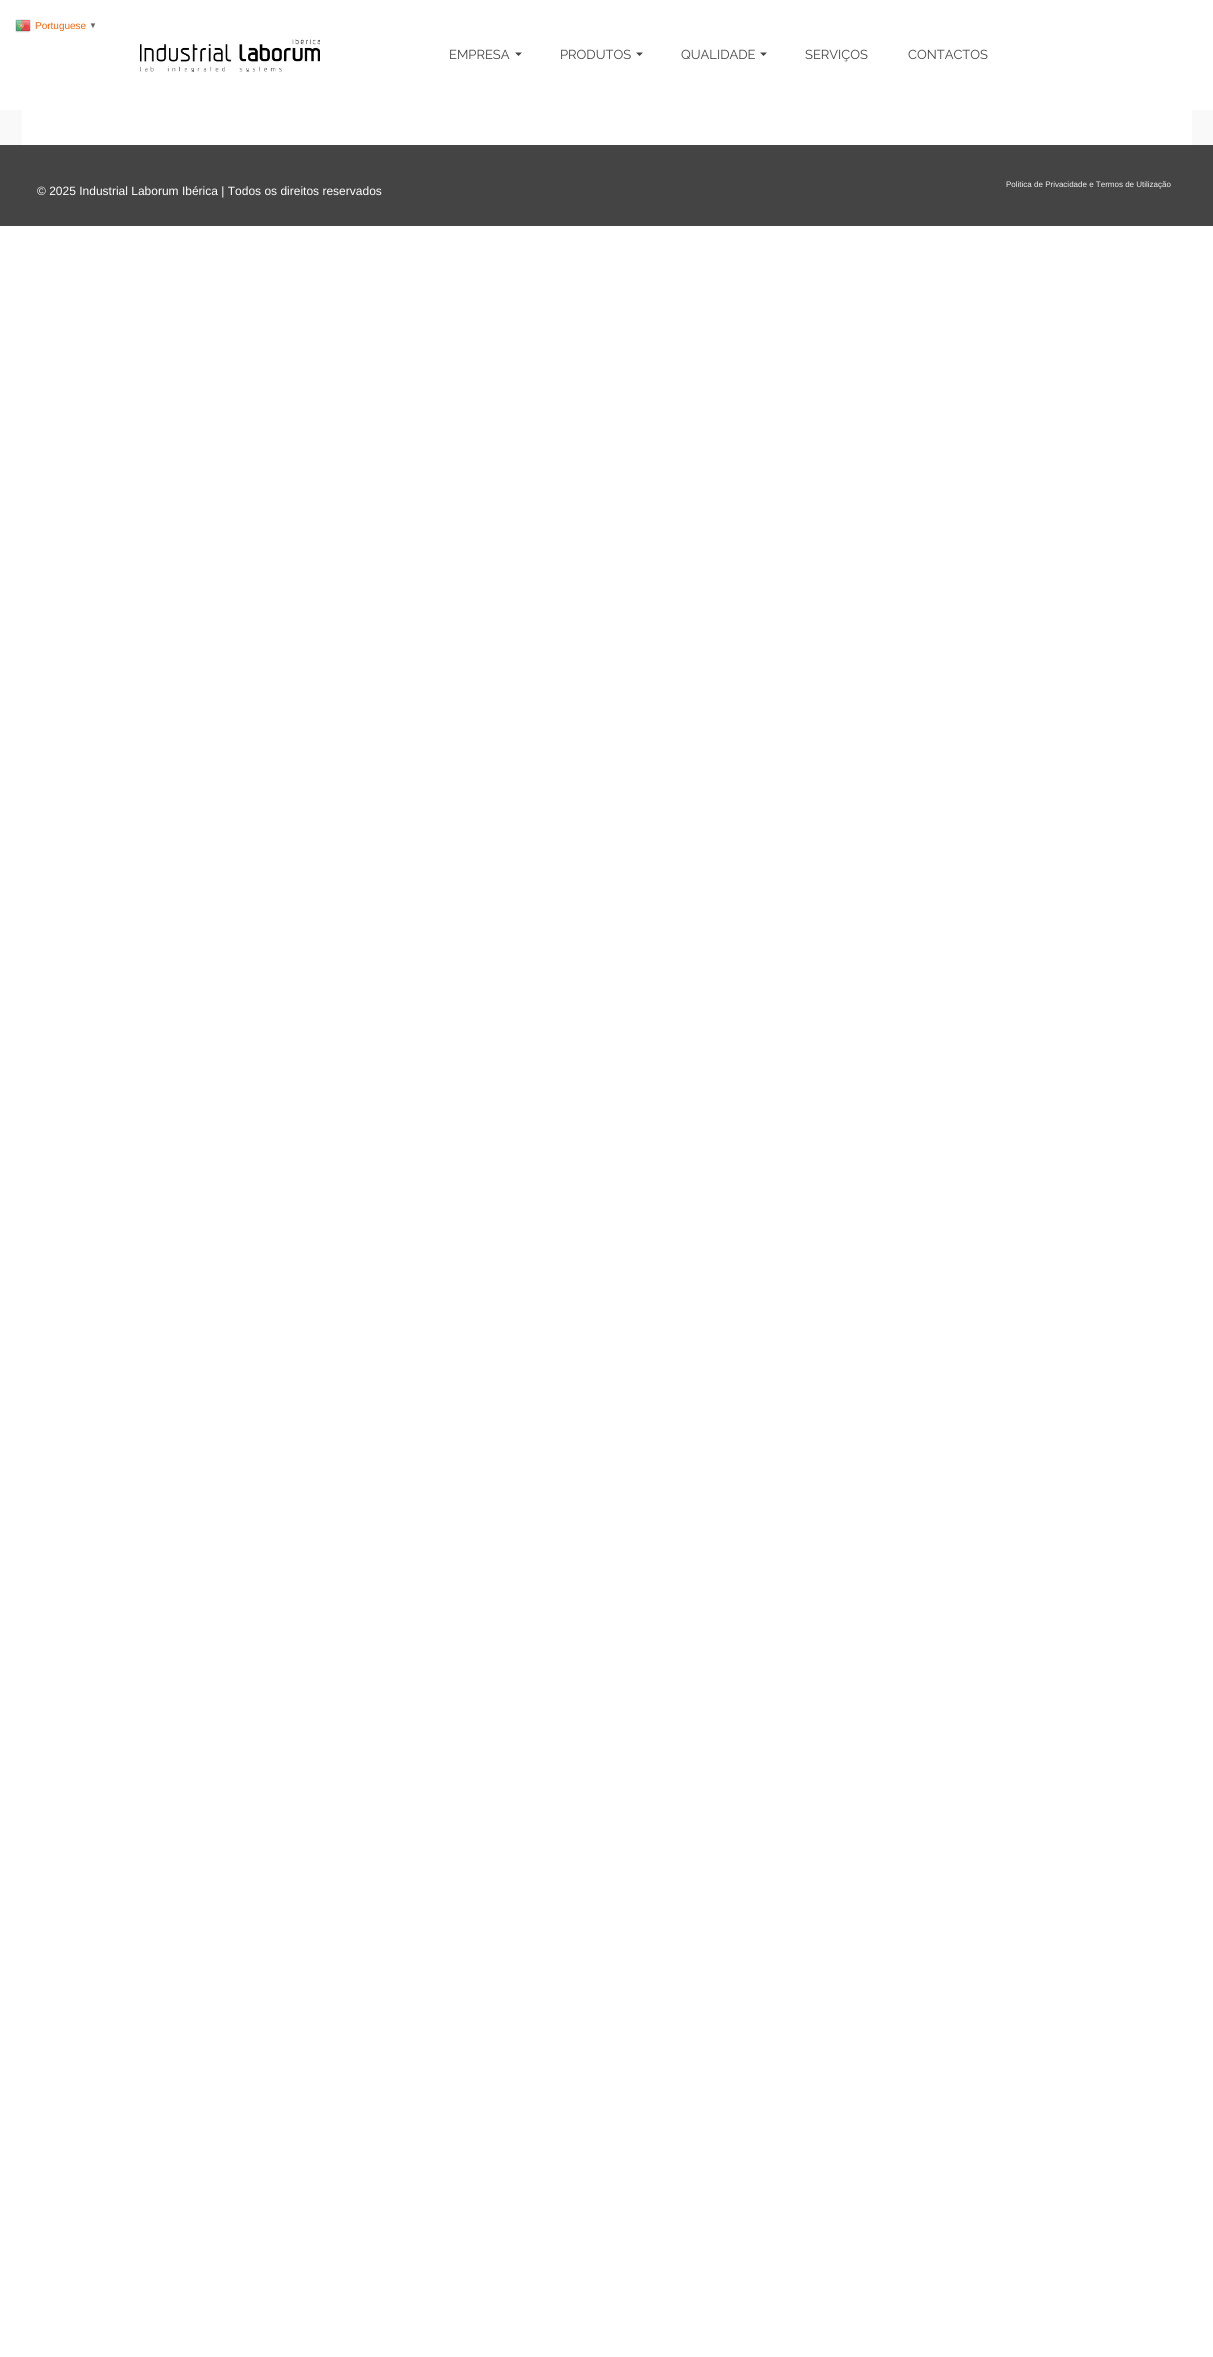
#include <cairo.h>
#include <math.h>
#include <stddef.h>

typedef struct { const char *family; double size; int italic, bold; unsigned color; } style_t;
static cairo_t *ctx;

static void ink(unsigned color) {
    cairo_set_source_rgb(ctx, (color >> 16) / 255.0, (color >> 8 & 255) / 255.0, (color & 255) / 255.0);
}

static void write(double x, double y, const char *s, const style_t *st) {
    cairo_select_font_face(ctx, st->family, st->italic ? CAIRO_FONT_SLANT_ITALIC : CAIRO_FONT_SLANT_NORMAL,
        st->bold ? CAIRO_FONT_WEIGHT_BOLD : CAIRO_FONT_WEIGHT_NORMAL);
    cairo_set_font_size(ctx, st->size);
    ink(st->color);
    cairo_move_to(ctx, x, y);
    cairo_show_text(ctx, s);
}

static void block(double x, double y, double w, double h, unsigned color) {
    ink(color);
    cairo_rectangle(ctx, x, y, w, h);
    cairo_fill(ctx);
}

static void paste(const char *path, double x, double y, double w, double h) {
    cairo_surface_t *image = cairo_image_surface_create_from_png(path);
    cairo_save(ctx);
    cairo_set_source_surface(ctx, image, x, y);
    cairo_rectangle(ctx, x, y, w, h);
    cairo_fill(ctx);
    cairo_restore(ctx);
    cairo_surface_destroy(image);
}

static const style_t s1 = {"Liberation Sans", 10, 0, 0, 0xf3690e};
static const style_t s2 = {"Liberation Sans", 8, 0, 1, 0x666666};
static const style_t s3 = {"Raleway", 13, 0, 0, 0x444444};
static const style_t s4 = {"Liberation Sans", 8, 0, 0, 0xf2f2f2};
static const style_t s5 = {"Liberation Sans", 12, 0, 0, 0xffffff};

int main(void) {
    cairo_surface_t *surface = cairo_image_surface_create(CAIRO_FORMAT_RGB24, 1213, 2357);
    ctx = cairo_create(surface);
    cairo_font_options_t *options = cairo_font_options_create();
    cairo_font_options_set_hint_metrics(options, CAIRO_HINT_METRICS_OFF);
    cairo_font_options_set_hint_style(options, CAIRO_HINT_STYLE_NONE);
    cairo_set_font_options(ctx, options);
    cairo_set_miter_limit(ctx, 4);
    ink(0xffffff);
    cairo_paint(ctx);
    paste("pic1.png", 15, 19, 16, 14);
    write(35, 29, "Portuguese", &s1);
    write(89, 28, "▼", &s2);
    paste("pic2.png", 140, 39, 180, 33);
    write(449, 59, "EMPRESA", &s3);
    cairo_new_path(ctx);
    cairo_move_to(ctx, 515, 52.5);
    cairo_line_to(ctx, 518.5, 56);
    cairo_line_to(ctx, 522, 52.5);
    cairo_close_path(ctx);
    cairo_fill(ctx);
    write(560, 59, "PRODUTOS", &s3);
    cairo_new_path(ctx);
    cairo_move_to(ctx, 636, 52.5);
    cairo_line_to(ctx, 639.5, 56);
    cairo_line_to(ctx, 643, 52.5);
    cairo_close_path(ctx);
    cairo_fill(ctx);
    write(681, 59, "QUALIDADE", &s3);
    cairo_new_path(ctx);
    cairo_move_to(ctx, 760, 52.5);
    cairo_line_to(ctx, 763.5, 56);
    cairo_line_to(ctx, 767, 52.5);
    cairo_close_path(ctx);
    cairo_fill(ctx);
    write(805, 59, "SERVIÇOS", &s3);
    write(908, 59, "CONTACTOS", &s3);
    block(0, 110, 1213, 35, 0xf9f9f9);
    block(22, 110, 1170, 35, 0xffffff);
    block(0, 145, 1213, 81, 0x444444);
    write(1006, 187, "Politica de Privacidade e Termos de Utilização", &s4);
    write(37, 195, "© 2025 Industrial Laborum Ibérica | Todos os direitos reservados", &s5);
    cairo_surface_write_to_png(surface, "screenshot.png");
    cairo_font_options_destroy(options);
    cairo_destroy(ctx);
    cairo_surface_destroy(surface);
    return 0;
}
